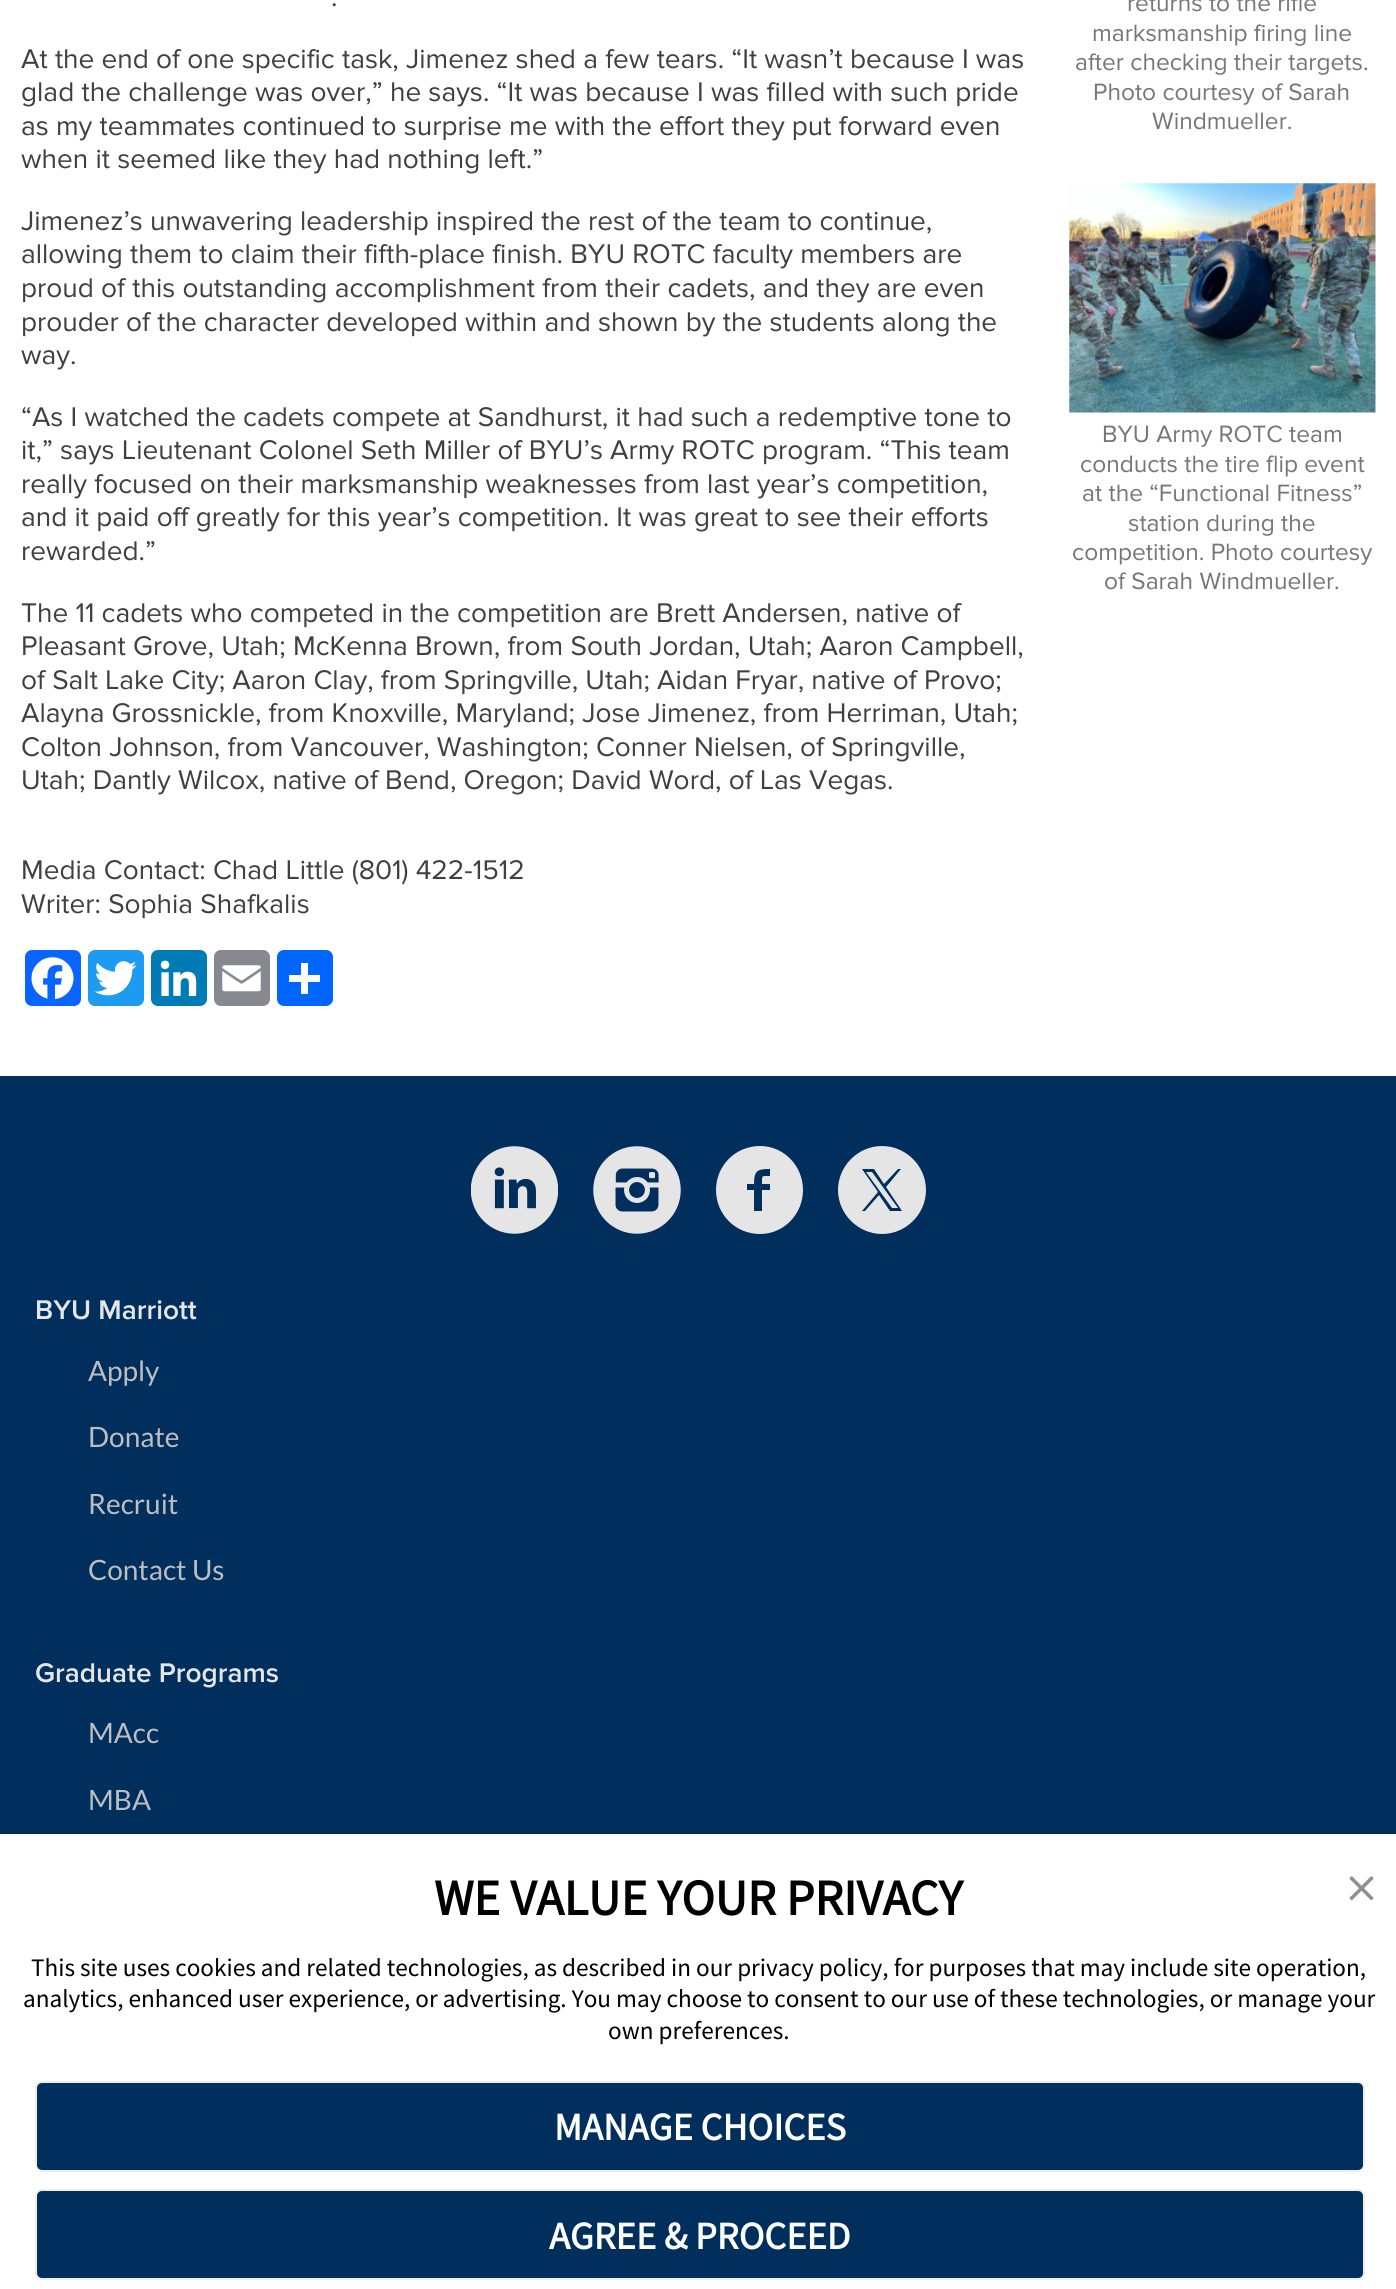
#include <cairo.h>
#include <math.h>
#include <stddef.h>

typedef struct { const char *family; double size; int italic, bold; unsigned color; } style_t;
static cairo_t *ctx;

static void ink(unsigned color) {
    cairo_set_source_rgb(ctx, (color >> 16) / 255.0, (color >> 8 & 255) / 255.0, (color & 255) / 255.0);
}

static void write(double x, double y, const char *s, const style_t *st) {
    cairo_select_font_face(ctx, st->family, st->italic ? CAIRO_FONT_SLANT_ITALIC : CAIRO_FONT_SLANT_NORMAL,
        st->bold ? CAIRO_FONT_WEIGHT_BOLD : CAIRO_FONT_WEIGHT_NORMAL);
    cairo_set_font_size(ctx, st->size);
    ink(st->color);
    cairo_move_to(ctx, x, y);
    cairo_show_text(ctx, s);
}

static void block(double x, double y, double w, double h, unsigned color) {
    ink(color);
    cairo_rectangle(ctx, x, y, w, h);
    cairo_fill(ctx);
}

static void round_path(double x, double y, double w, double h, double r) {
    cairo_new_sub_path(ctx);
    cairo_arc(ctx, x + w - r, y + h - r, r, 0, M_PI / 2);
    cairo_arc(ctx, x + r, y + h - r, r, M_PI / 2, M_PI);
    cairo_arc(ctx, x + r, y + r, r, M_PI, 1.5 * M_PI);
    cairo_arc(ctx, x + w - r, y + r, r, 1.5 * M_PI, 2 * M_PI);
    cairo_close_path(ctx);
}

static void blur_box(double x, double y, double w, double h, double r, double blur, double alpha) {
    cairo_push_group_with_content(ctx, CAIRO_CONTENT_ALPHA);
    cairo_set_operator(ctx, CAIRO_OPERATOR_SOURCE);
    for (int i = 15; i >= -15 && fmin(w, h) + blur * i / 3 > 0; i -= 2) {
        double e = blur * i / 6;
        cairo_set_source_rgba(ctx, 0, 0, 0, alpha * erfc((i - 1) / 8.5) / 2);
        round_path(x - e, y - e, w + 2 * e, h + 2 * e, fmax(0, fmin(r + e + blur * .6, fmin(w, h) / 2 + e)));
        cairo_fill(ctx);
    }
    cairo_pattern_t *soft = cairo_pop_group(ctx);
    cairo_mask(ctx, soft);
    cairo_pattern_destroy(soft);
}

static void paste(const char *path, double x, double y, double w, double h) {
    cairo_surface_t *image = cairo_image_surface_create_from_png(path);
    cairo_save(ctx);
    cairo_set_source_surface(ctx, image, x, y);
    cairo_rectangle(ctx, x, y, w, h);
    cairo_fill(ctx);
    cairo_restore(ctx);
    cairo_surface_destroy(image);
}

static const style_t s1 = {"Proxima Nova", 28, 0, 0, 0x404040};
static const style_t s2 = {"Proxima Nova", 24.5, 0, 0, 0x75757a};
static const style_t s3 = {"Proxima Nova SemiBold", 28, 0, 0, 0xe5e5e6};
static const style_t s4 = {"Lato", 28, 0, 0, 0xbdbec0};
static const style_t s5 = {"Source Sans Pro", 50.4, 0, 1, 0x000000};
static const style_t s6 = {"Source Sans Pro", 25.2, 0, 0, 0x000000};
static const style_t s7 = {"Source Sans Pro", 38.5, 0, 1, 0xffffff};

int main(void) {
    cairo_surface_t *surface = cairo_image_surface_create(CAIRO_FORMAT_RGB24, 1396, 2289);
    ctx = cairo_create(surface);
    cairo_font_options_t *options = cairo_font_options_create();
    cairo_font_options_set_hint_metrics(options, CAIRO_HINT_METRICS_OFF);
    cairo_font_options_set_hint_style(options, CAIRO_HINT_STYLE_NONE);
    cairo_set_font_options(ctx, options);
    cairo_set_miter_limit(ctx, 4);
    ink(0x002e5d);
    cairo_paint(ctx);
    block(0, 0, 1396, 1076, 0xffffff);
    write(331, 6, ".", &s1);
    write(21, 68, "At the end of one specific task, Jimenez shed a few tears. “It wasn’t because I was", &s1);
    write(21, 101, "glad the challenge was over,” he says. “It was because I was filled with such pride", &s1);
    write(21, 135, "as my teammates continued to surprise me with the effort they put forward even", &s1);
    write(21, 168, "when it seemed like they had nothing left.”", &s1);
    write(21, 230, "Jimenez’s unwavering leadership inspired the rest of the team to continue,", &s1);
    write(21, 263, "allowing them to claim their fifth-place finish. BYU ROTC faculty members are", &s1);
    write(21, 297, "proud of this outstanding accomplishment from their cadets, and they are even", &s1);
    write(21, 331, "prouder of the character developed within and shown by the students along the", &s1);
    write(21, 364, "way.", &s1);
    write(21, 426, "“As I watched the cadets compete at Sandhurst, it had such a redemptive tone to", &s1);
    write(21, 459, "it,” says Lieutenant Colonel Seth Miller of BYU’s Army ROTC program. “This team", &s1);
    write(21, 493, "really focused on their marksmanship weaknesses from last year’s competition,", &s1);
    write(21, 526, "and it paid off greatly for this year’s competition. It was great to see their efforts", &s1);
    write(21, 560, "rewarded.”", &s1);
    write(21, 622, "The 11 cadets who competed in the competition are Brett Andersen, native of", &s1);
    write(21, 655, "Pleasant Grove, Utah; McKenna Brown, from South Jordan, Utah; Aaron Campbell,", &s1);
    write(21, 689, "of Salt Lake City; Aaron Clay, from Springville, Utah; Aidan Fryar, native of Provo;", &s1);
    write(21, 722, "Alayna Grossnickle, from Knoxville, Maryland; Jose Jimenez, from Herriman, Utah;", &s1);
    write(21, 756, "Colton Johnson, from Vancouver, Washington; Conner Nielsen, of Springville,", &s1);
    write(21, 789, "Utah; Dantly Wilcox, native of Bend, Oregon; David Word, of Las Vegas.", &s1);
    write(1127, 11, "returns to the rifle", &s2);
    write(1092, 41, "marksmanship firing line", &s2);
    write(1075, 70, "after checking their targets.", &s2);
    write(1093, 100, "Photo courtesy of Sarah", &s2);
    write(1152, 129, "Windmueller.", &s2);
    paste("pic1.png", 1069, 183, 307, 230);
    write(1102, 442, "BYU Army ROTC team", &s2);
    write(1080, 472, "conducts the tire flip event", &s2);
    write(1082, 501, "at the “Functional Fitness”", &s2);
    write(1128, 531, "station during the", &s2);
    write(1072, 560, "competition. Photo courtesy", &s2);
    write(1104, 589, "of Sarah Windmueller.", &s2);
    write(21, 879, "Media Contact: Chad Little (801) 422-1512", &s1);
    write(21, 913, "Writer: Sophia Shafkalis", &s1);
    ink(0x0866ff);
    round_path(25, 950, 56, 56, 7);
    cairo_fill(ctx);
    paste("pic2.png", 31, 957, 43, 43);
    ink(0x1d9bf0);
    round_path(88, 950, 56, 56, 7);
    cairo_fill(ctx);
    paste("pic3.png", 94, 961, 43, 35);
    ink(0x007bb5);
    round_path(151, 950, 56, 56, 7);
    cairo_fill(ctx);
    paste("pic4.png", 160, 960, 37, 36);
    ink(0x888990);
    round_path(214, 950, 56, 56, 7);
    cairo_fill(ctx);
    paste("pic5.png", 222, 965, 39, 27);
    ink(0x0166ff);
    round_path(277, 950, 56, 56, 7);
    cairo_fill(ctx);
    block(301, 963, 7, 31, 0xffffff);
    block(289, 975, 31, 7, 0xffffff);
    paste("pic6.png", 471, 1146, 87, 88);
    paste("pic7.png", 593, 1146, 88, 88);
    ink(0xe5e5e6);
    cairo_new_path(ctx);
    cairo_move_to(ctx, 760, 1146);
    cairo_curve_to(ctx, 735, 1146, 716, 1166, 716, 1190);
    cairo_curve_to(ctx, 716, 1214, 735, 1234, 760, 1234);
    cairo_curve_to(ctx, 784, 1234, 803, 1214, 803, 1190);
    cairo_curve_to(ctx, 803, 1166, 784, 1146, 760, 1146);
    cairo_close_path(ctx);
    cairo_move_to(ctx, 770, 1176);
    cairo_curve_to(ctx, 761, 1176, 762, 1175, 762, 1184);
    cairo_line_to(ctx, 770, 1184);
    cairo_line_to(ctx, 770, 1190);
    cairo_line_to(ctx, 762, 1190);
    cairo_line_to(ctx, 762, 1211);
    cairo_line_to(ctx, 754, 1211);
    cairo_line_to(ctx, 754, 1190);
    cairo_line_to(ctx, 747, 1190);
    cairo_line_to(ctx, 747, 1184);
    cairo_line_to(ctx, 754, 1184);
    cairo_curve_to(ctx, 754, 1170, 758, 1169, 770, 1169);
    cairo_close_path(ctx);
    cairo_fill(ctx);
    cairo_new_path(ctx);
    cairo_move_to(ctx, 872, 1172);
    cairo_line_to(ctx, 866, 1172);
    cairo_line_to(ctx, 892, 1208);
    cairo_line_to(ctx, 898, 1208);
    cairo_line_to(ctx, 872, 1172);
    cairo_move_to(ctx, 901, 1169);
    cairo_line_to(ctx, 886, 1187);
    cairo_line_to(ctx, 902, 1211);
    cairo_line_to(ctx, 890, 1211);
    cairo_line_to(ctx, 879, 1195);
    cairo_line_to(ctx, 865, 1211);
    cairo_line_to(ctx, 862, 1211);
    cairo_line_to(ctx, 878, 1192);
    cairo_line_to(ctx, 862, 1169);
    cairo_line_to(ctx, 874, 1169);
    cairo_line_to(ctx, 884, 1184);
    cairo_line_to(ctx, 898, 1169);
    cairo_line_to(ctx, 901, 1169);
    cairo_move_to(ctx, 882, 1146);
    cairo_curve_to(ctx, 858, 1146, 838, 1166, 838, 1190);
    cairo_curve_to(ctx, 838, 1214, 858, 1234, 882, 1234);
    cairo_curve_to(ctx, 906, 1234, 926, 1214, 926, 1190);
    cairo_curve_to(ctx, 926, 1166, 906, 1146, 882, 1146);
    cairo_fill(ctx);
    write(35, 1319, "BYU Marriott", &s3);
    write(88, 1381, "Apply", &s4);
    write(88, 1447, "Donate", &s4);
    write(88, 1514, "Recruit", &s4);
    write(88, 1580, "Contact Us", &s4);
    write(35, 1682, "Graduate Programs", &s3);
    write(88, 1743, "MAcc", &s4);
    write(88, 1810, "MBA", &s4);
    ink(0x000000);
    blur_box(0, 1834, 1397, 455, 0, 3.5, 0.2);
    block(0, 1834, 1396, 455, 0xffffff);
    paste("pic8.png", 1349, 1876, 25, 25);
    write(434, 1915, "WE VALUE YOUR PRIVACY", &s5);
    write(31, 1976, "This site uses cookies and related technologies, as described in our privacy policy, for purposes that may include site operation,", &s6);
    write(23, 2007, "analytics, enhanced user experience, or advertising. You may choose to consent to our use of these technologies, or manage your", &s6);
    write(608, 2039, "own preferences.", &s6);
    ink(0x002e5d);
    round_path(36, 2082, 1328, 89, 6);
    cairo_fill_preserve(ctx);
    ink(0xeeeeee);
    cairo_stroke(ctx);
    write(554, 2140, "MANAGE CHOICES", &s7);
    ink(0x002e5d);
    round_path(36, 2190, 1328, 89, 6);
    cairo_fill_preserve(ctx);
    ink(0xeeeeee);
    cairo_stroke(ctx);
    write(549, 2249, "AGREE & PROCEED", &s7);
    cairo_surface_write_to_png(surface, "screenshot.png");
    cairo_font_options_destroy(options);
    cairo_destroy(ctx);
    cairo_surface_destroy(surface);
    return 0;
}
